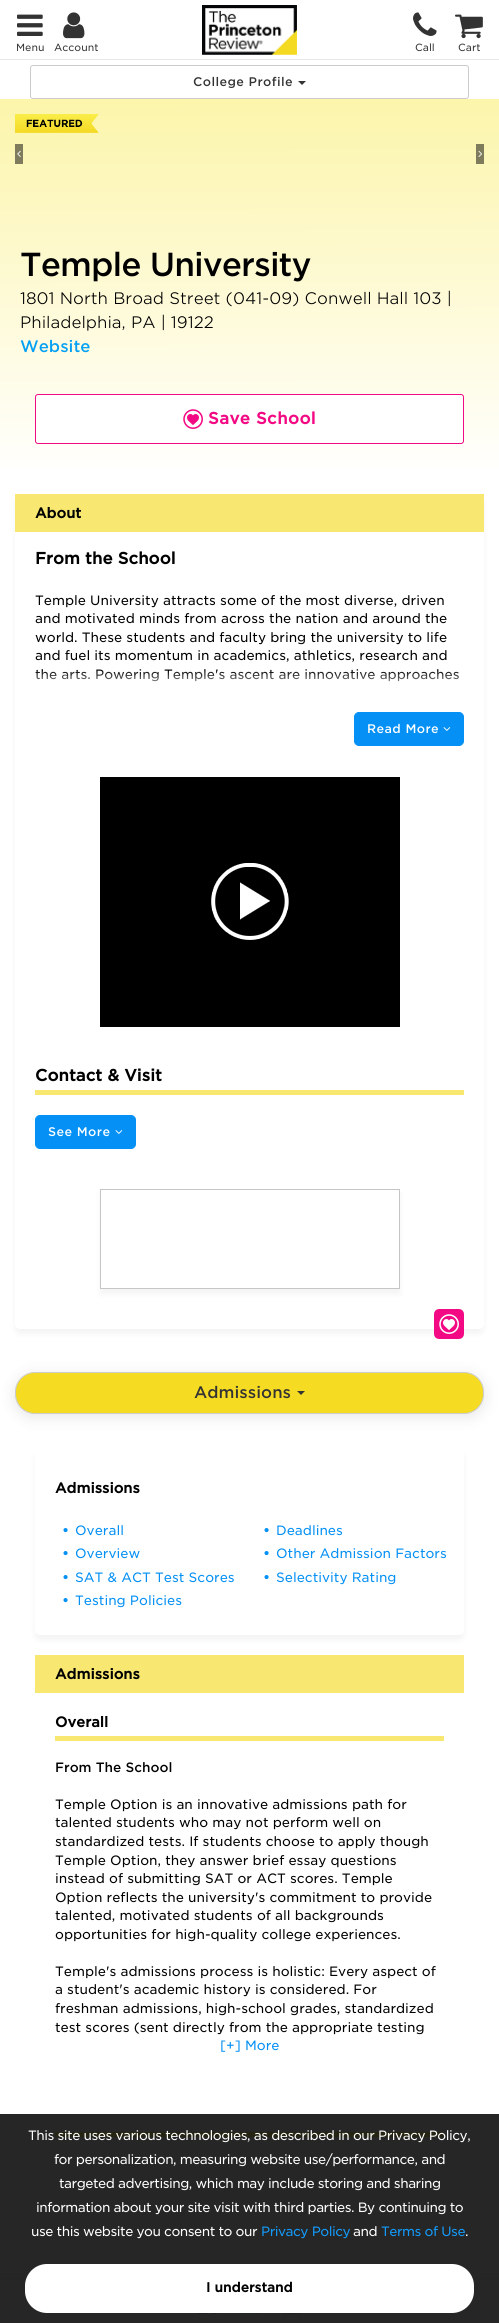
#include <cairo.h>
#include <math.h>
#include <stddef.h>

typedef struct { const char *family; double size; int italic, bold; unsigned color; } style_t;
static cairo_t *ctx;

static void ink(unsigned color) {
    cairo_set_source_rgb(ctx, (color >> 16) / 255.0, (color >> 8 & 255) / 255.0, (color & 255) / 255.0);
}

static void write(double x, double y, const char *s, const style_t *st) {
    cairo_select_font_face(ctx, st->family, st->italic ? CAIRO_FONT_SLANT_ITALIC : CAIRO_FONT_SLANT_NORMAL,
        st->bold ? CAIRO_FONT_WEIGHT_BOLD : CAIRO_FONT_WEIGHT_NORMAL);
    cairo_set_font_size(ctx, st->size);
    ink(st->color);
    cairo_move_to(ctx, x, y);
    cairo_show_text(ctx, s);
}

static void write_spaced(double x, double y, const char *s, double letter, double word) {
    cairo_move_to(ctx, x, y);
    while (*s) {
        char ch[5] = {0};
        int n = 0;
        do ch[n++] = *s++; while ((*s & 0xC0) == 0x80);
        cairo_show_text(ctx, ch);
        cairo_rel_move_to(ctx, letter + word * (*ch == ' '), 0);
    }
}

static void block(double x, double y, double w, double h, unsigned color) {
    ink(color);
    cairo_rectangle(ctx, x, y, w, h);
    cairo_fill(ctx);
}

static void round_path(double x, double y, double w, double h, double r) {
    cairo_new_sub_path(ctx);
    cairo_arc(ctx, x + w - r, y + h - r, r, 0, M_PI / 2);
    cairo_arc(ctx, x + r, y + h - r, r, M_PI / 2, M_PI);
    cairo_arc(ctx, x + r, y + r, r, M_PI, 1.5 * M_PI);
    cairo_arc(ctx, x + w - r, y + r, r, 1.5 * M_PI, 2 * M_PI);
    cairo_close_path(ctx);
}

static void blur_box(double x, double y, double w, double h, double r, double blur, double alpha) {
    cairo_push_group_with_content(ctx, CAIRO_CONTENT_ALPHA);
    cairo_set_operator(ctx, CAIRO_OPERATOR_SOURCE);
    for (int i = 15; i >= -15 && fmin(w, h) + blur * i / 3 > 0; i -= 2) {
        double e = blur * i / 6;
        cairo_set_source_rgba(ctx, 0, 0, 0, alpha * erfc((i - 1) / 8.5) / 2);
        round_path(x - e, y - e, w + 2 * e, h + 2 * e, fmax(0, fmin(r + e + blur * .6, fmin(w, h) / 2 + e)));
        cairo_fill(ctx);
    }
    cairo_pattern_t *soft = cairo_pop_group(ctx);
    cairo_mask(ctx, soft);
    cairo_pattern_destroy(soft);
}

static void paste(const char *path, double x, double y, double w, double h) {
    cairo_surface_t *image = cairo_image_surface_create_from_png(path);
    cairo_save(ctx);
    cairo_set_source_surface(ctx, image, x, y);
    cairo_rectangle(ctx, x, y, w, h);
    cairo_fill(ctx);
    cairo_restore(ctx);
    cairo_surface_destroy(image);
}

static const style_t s1 = {"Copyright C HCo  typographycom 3 Light", 10, 0, 0, 0x333333};
static const style_t s2 = {"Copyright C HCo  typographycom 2 Light", 16, 0, 0, 0x000000};
static const style_t s3 = {"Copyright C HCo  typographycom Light", 16, 0, 0, 0x04a0f4};
static const style_t s4 = {"Copyright C HCo  typographycom", 14, 0, 1, 0x000000};
static const style_t s5 = {"Copyright C HCo  typographycom", 16, 0, 1, 0x000000};
static const style_t s6 = {"Copyright C HCo  typographycom 3 Light", 13, 0, 0, 0x000000};
static const style_t s7 = {"Copyright C HCo  typographycom Light", 16, 0, 0, 0x333333};
static const style_t s8 = {"Copyright C HCo  typographycom", 13, 0, 1, 0x0490f4};
static const style_t s9 = {"Copyright C HCo  typographycom 3 Light", 13, 0, 0, 0x0490f4};
static const style_t s10 = {"Copyright C HCo  typographycom Light", 13, 0, 0, 0x000000};
static const style_t s11 = {"Copyright C HCo  typographycom", 13, 0, 1, 0x000000};

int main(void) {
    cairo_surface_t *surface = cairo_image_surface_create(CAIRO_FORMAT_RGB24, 499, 2323);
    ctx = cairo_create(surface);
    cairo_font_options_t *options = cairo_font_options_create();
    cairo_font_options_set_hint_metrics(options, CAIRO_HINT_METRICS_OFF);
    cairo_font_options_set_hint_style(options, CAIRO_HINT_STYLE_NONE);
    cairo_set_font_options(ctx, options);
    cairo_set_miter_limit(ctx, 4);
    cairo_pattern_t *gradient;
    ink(0xffffff);
    cairo_paint(ctx);
    block(0, 59, 499, 1, 0xe7e7e7);
    paste("pic1.png", 17, 14, 26, 22);
    write(16, 51, "Menu", &s1);
    paste("pic2.png", 63, 12, 22, 27);
    write(54, 51, "Account", &s1);
    paste("pic3.png", 202, 5, 95, 50);
    paste("pic4.png", 413, 12, 24, 24);
    write(415, 51, "Call", &s1);
    paste("pic5.png", 455, 14, 28, 25);
    write(458, 51, "Cart", &s1);
    round_path(30.5, 65.5, 438, 33, 2.5);
    ink(0xcccccc);
    cairo_set_line_width(ctx, 1);
    cairo_stroke(ctx);
    cairo_select_font_face(ctx, "Copyright C HCo  typographycom Light", CAIRO_FONT_SLANT_NORMAL, CAIRO_FONT_WEIGHT_NORMAL);
    cairo_set_font_size(ctx, 12);
    ink(0x333333);
    write_spaced(193, 86, "College Profile", 0.4, 0);
    cairo_new_path(ctx);
    cairo_move_to(ctx, 298, 81);
    cairo_line_to(ctx, 306, 81);
    cairo_line_to(ctx, 302, 85);
    cairo_close_path(ctx);
    cairo_fill(ctx);
    gradient = cairo_pattern_create_linear(249, 99, 250, 479);
    cairo_pattern_add_color_stop_rgba(gradient, 0, 0.988, 0.961, 0.671, 1);
    cairo_pattern_add_color_stop_rgba(gradient, 1, 1, 1, 1, 1);
    cairo_set_source(ctx, gradient);
    cairo_pattern_destroy(gradient);
    cairo_rectangle(ctx, 0, 99, 499, 369);
    cairo_fill(ctx);
    gradient = cairo_pattern_create_linear(249, 99, 250, 479);
    cairo_pattern_add_color_stop_rgba(gradient, 0, 0.494, 0.482, 0.337, 1);
    cairo_pattern_add_color_stop_rgba(gradient, 1, 0.502, 0.502, 0.502, 1);
    cairo_set_source(ctx, gradient);
    cairo_pattern_destroy(gradient);
    cairo_rectangle(ctx, 476, 144, 8, 20);
    cairo_fill(ctx);
    cairo_rectangle(ctx, 15, 144, 8, 20);
    cairo_fill(ctx);
    paste("pic6.png", 15, 114, 84, 19);
    paste("pic7.png", 17, 150, 4, 7);
    paste("pic8.png", 478, 150, 4, 7);
    cairo_set_font_size(ctx, 32);
    ink(0x000000);
    write_spaced(20, 276, "Temple University", -1, 0);
    write(20, 304, "1801 North Broad Street (041-09) Conwell Hall 103 |", &s2);
    write(20, 328, "Philadelphia, PA | 19122", &s2);
    write(20, 352, "Website", &s3);
    ink(0xffffff);
    round_path(35.5, 394.5, 428, 49, 2.5);
    cairo_fill_preserve(ctx);
    ink(0xf30983);
    cairo_stroke(ctx);
    paste("pic9.png", 183, 409, 20, 20);
    cairo_select_font_face(ctx, "Copyright C HCo  typographycom", CAIRO_FONT_SLANT_NORMAL, CAIRO_FONT_WEIGHT_BOLD);
    write_spaced(208, 424, "Save School", 0.4, 0);
    ink(0x8c8e8f);
    blur_box(15, 499, 469, 835, 5, 3, 0.1);
    ink(0xffffff);
    round_path(15, 494, 469, 835, 5);
    cairo_fill(ctx);
    block(15, 494, 469, 38, 0xf8e872);
    write(35, 518, "About", &s4);
    write(35, 564, "From the School", &s5);
    write(35, 605, "Temple University attracts some of the most diverse, driven", &s6);
    write(35, 623, "and motivated minds from across the nation and around the", &s6);
    write(35, 642, "world. These students and faculty bring the university to life", &s6);
    write(35, 660, "and fuel its momentum in academics, athletics, research and", &s6);
    write(35, 679, "the arts. Powering Temple's ascent are innovative approaches", &s6);
    gradient = cairo_pattern_create_linear(250, 702, 250, 662);
    cairo_pattern_add_color_stop_rgba(gradient, 0.2, 1, 1, 1, 1);
    cairo_pattern_add_color_stop_rgba(gradient, 0.8, 1, 1, 1, 0);
    cairo_set_source(ctx, gradient);
    cairo_pattern_destroy(gradient);
    cairo_rectangle(ctx, 35, 671, 424, 11);
    cairo_fill(ctx);
    ink(0x0490f4);
    round_path(354.5, 712.5, 109, 33, 4.5);
    cairo_fill_preserve(ctx);
    cairo_stroke(ctx);
    cairo_select_font_face(ctx, "Copyright C HCo  typographycom Light", CAIRO_FONT_SLANT_NORMAL, CAIRO_FONT_WEIGHT_NORMAL);
    cairo_set_font_size(ctx, 12);
    ink(0xffffff);
    write_spaced(367, 733, "Read More", 0.4, 0);
    paste("pic10.png", 443, 727, 8, 4);
    block(100, 777, 300, 250, 0x000000);
    paste("pic11.png", 211, 863, 78, 77);
    block(35, 1090, 429, 5, 0xf8e872);
    write(35, 1081, "Contact & Visit", &s5);
    ink(0x0490f4);
    round_path(35.5, 1115.5, 100, 33, 4.5);
    cairo_fill_preserve(ctx);
    cairo_stroke(ctx);
    cairo_select_font_face(ctx, "Copyright C HCo  typographycom Light", CAIRO_FONT_SLANT_NORMAL, CAIRO_FONT_WEIGHT_NORMAL);
    cairo_set_font_size(ctx, 12);
    ink(0xffffff);
    write_spaced(48, 1136, "See More", 0.4, 0);
    paste("pic10.png", 115, 1130, 8, 4);
    cairo_save(ctx);
    cairo_set_fill_rule(ctx, CAIRO_FILL_RULE_EVEN_ODD);
    cairo_new_path(ctx);
    cairo_move_to(ctx, 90, 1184);
    cairo_line_to(ctx, 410, 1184);
    cairo_line_to(ctx, 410, 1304);
    cairo_line_to(ctx, 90, 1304);
    cairo_close_path(ctx);
    cairo_move_to(ctx, 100, 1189);
    cairo_line_to(ctx, 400, 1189);
    cairo_line_to(ctx, 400, 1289);
    cairo_line_to(ctx, 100, 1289);
    cairo_close_path(ctx);
    cairo_clip(ctx);
    ink(0x8c8e8f);
    blur_box(100, 1194, 300, 100, 0, 3, 0.1);
    cairo_restore(ctx);
    cairo_rectangle(ctx, 100.5, 1189.5, 299, 99);
    ink(0xc5c5c5);
    cairo_stroke(ctx);
    paste("pic12.png", 434, 1309, 30, 30);
    ink(0xc8c8c8);
    blur_box(15, 1375, 469, 42, 20, 7.5, 0.43);
    ink(0xf5db22);
    round_path(15.5, 1372.5, 468, 41, 19.5);
    cairo_fill_preserve(ctx);
    ink(0xcccccc);
    cairo_stroke(ctx);
    write(194, 1398, "Admissions", &s7);
    cairo_new_path(ctx);
    cairo_move_to(ctx, 297, 1391);
    cairo_line_to(ctx, 305, 1391);
    cairo_line_to(ctx, 301, 1395);
    cairo_close_path(ctx);
    cairo_fill(ctx);
    ink(0x8c8e8f);
    blur_box(35, 1454, 429, 186, 5, 3, 0.1);
    ink(0xffffff);
    round_path(35, 1449, 429, 186, 5);
    cairo_fill(ctx);
    write(55, 1493, "Admissions", &s4);
    write(62, 1535, "•", &s8);
    write(75, 1535, "Overall", &s9);
    write(263, 1535, "•", &s8);
    write(276, 1535, "Deadlines", &s9);
    write(62, 1558, "•", &s8);
    write(75, 1558, "Overview", &s9);
    write(263, 1558, "•", &s8);
    write(276, 1558, "Other Admission Factors", &s9);
    write(62, 1582, "•", &s8);
    write(75, 1582, "SAT & ACT Test Scores", &s9);
    write(263, 1582, "•", &s8);
    write(276, 1582, "Selectivity Rating", &s9);
    write(62, 1605, "•", &s8);
    write(75, 1605, "Testing Policies", &s9);
    block(35, 1655, 429, 38, 0xf8e872);
    write(55, 1679, "Admissions", &s4);
    block(55, 1736, 389, 5, 0xf8e872);
    write(55, 1727, "Overall", &s4);
    write(55, 1772, "From The School", &s10);
    write(55, 1809, "Temple Option is an innovative admissions path for", &s6);
    write(55, 1827, "talented students who may not perform well on", &s6);
    write(55, 1846, "standardized tests. If students choose to apply though", &s6);
    write(55, 1865, "Temple Option, they answer brief essay questions", &s6);
    write(55, 1883, "instead of submitting SAT or ACT scores. Temple", &s6);
    write(55, 1902, "Option reflects the university's commitment to provide", &s6);
    write(55, 1920, "talented, motivated students of all backgrounds", &s6);
    write(55, 1939, "opportunities for high-quality college experiences.", &s6);
    write(55, 1976, "Temple's admissions process is holistic: Every aspect of", &s6);
    write(55, 1994, "a student's academic history is considered. For", &s6);
    write(55, 2013, "freshman admissions, high-school grades, standardized", &s6);
    write(55, 2032, "test scores (sent directly from the appropriate testing", &s6);
    write(220, 2050, "[+] More", &s9);
    block(55, 2132, 389, 5, 0xf8e872);
    block(0, 2278, 499, 1, 0xf3f3f3);
    paste("pic13.png", 196, 2313, 21, 1);
    paste("pic14.png", 239, 2313, 21, 1);
    paste("pic15.png", 281, 2313, 21, 1);
    cairo_set_source_rgba(ctx, 0, 0, 0, 0.85);
    cairo_rectangle(ctx, 0, 2114, 499, 209);
    cairo_fill(ctx);
    ink(0xffffff);
    write_spaced(28, 2140, "This site uses various technologies, as described in our Privacy Policy,", -0.5, 0);
    write_spaced(54, 2164, "for personalization, measuring website use/performance, and", -0.5, 0);
    write_spaced(59, 2188, "targeted advertising, which may include storing and sharing", -0.5, 0);
    write_spaced(36, 2212, "information about your site visit with third parties. By continuing to", -0.5, 0);
    write_spaced(31, 2236, "use this website you consent to our", -0.5, 0);
    ink(0x139bfb);
    write_spaced(261, 2236, "Privacy Policy", -0.5, 0);
    ink(0xffffff);
    write_spaced(353, 2236, "and", -0.5, 0);
    ink(0x139bfb);
    write_spaced(381, 2236, "Terms of Use", -0.5, 0);
    ink(0xffffff);
    write_spaced(465, 2236, ".", -0.5, 0);
    round_path(25, 2264, 449, 49, 22);
    cairo_fill(ctx);
    write(206, 2292, "I understand", &s11);
    cairo_surface_write_to_png(surface, "screenshot.png");
    cairo_font_options_destroy(options);
    cairo_destroy(ctx);
    cairo_surface_destroy(surface);
    return 0;
}
